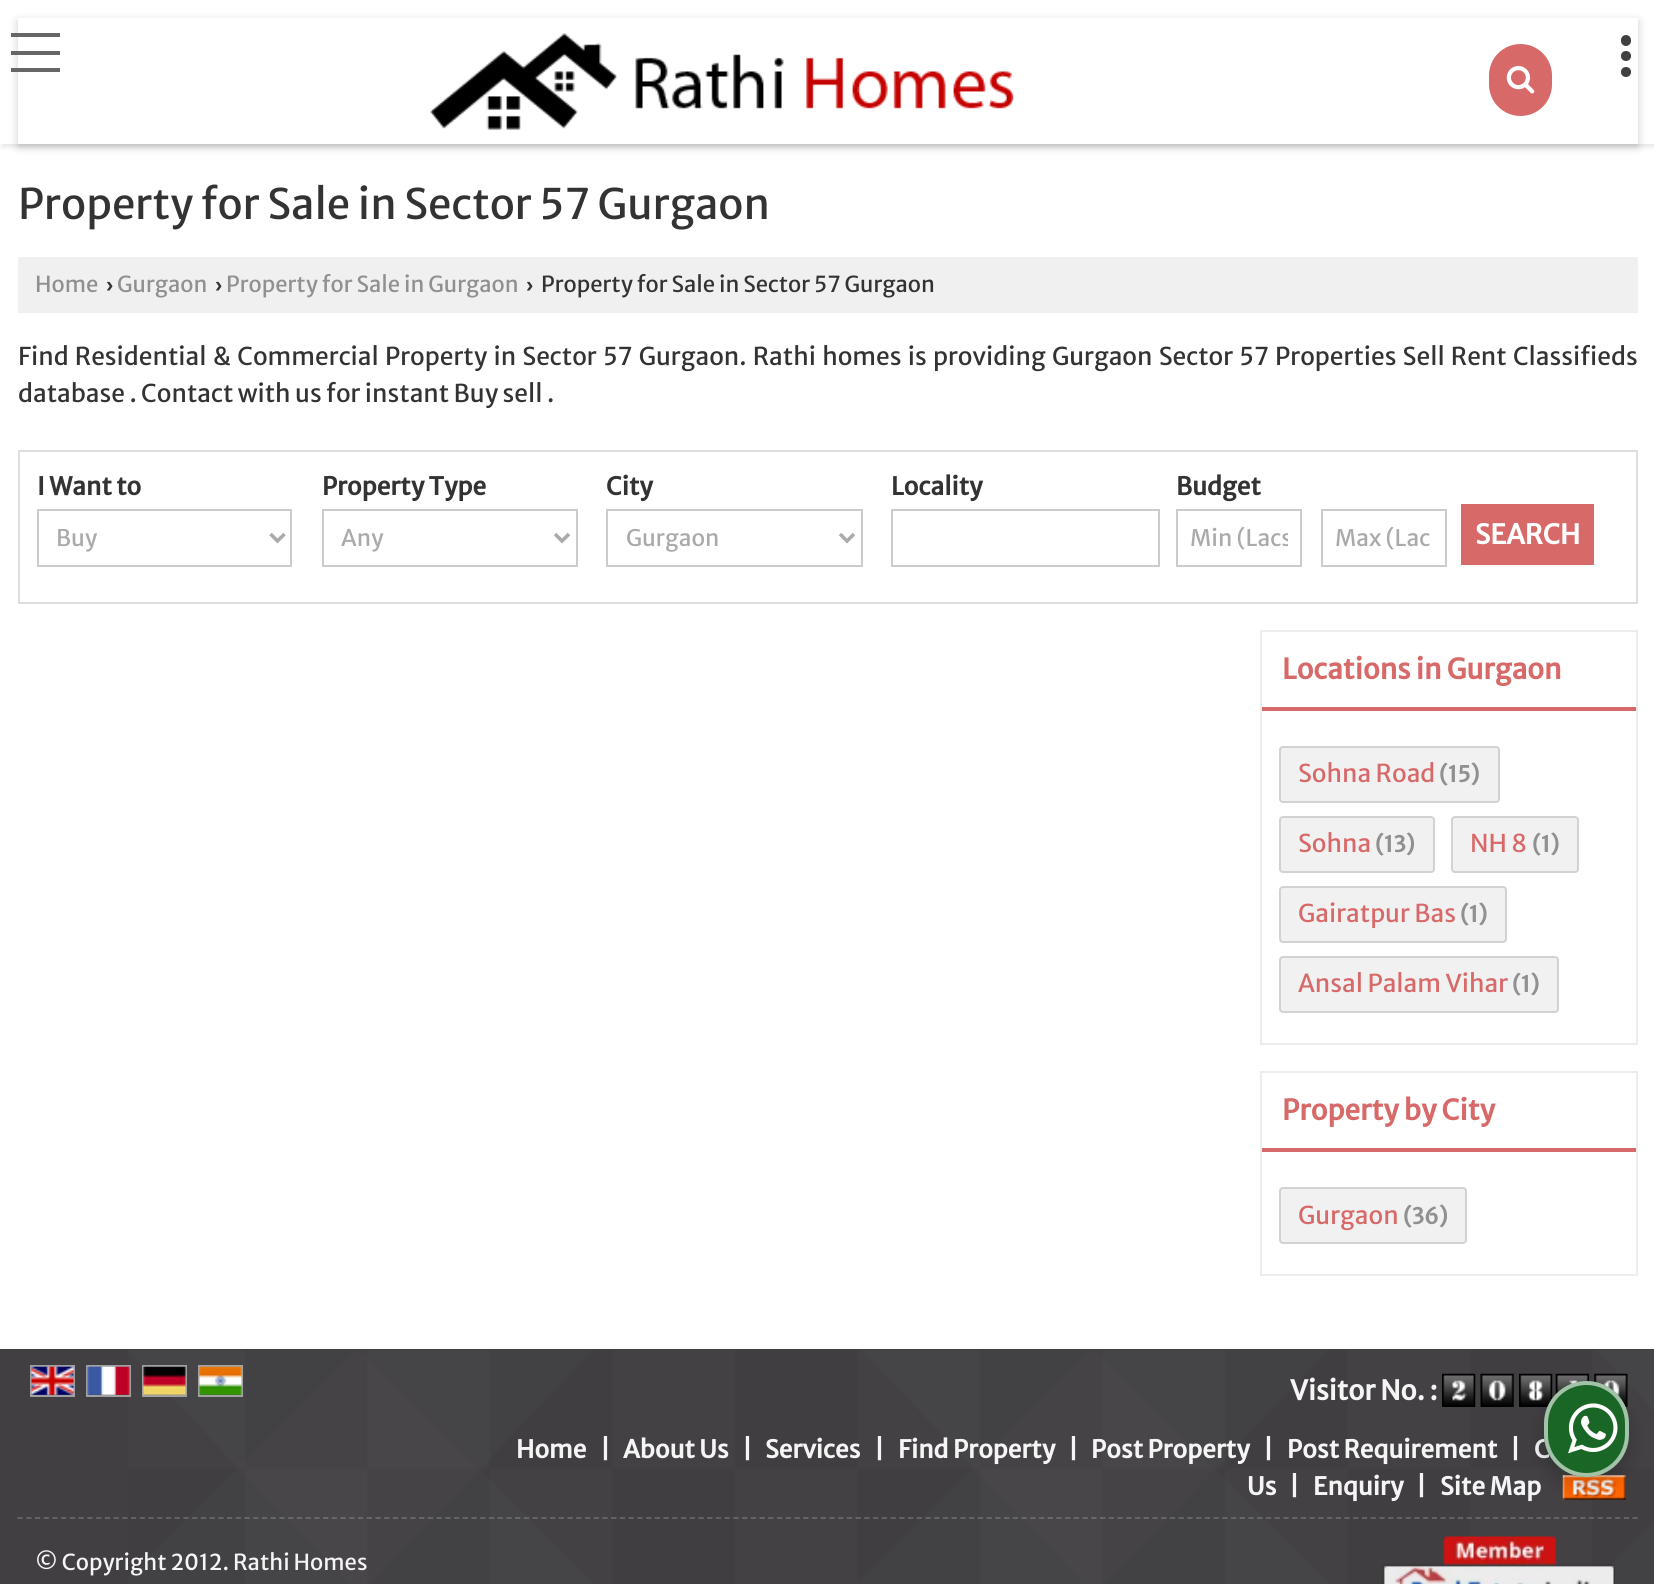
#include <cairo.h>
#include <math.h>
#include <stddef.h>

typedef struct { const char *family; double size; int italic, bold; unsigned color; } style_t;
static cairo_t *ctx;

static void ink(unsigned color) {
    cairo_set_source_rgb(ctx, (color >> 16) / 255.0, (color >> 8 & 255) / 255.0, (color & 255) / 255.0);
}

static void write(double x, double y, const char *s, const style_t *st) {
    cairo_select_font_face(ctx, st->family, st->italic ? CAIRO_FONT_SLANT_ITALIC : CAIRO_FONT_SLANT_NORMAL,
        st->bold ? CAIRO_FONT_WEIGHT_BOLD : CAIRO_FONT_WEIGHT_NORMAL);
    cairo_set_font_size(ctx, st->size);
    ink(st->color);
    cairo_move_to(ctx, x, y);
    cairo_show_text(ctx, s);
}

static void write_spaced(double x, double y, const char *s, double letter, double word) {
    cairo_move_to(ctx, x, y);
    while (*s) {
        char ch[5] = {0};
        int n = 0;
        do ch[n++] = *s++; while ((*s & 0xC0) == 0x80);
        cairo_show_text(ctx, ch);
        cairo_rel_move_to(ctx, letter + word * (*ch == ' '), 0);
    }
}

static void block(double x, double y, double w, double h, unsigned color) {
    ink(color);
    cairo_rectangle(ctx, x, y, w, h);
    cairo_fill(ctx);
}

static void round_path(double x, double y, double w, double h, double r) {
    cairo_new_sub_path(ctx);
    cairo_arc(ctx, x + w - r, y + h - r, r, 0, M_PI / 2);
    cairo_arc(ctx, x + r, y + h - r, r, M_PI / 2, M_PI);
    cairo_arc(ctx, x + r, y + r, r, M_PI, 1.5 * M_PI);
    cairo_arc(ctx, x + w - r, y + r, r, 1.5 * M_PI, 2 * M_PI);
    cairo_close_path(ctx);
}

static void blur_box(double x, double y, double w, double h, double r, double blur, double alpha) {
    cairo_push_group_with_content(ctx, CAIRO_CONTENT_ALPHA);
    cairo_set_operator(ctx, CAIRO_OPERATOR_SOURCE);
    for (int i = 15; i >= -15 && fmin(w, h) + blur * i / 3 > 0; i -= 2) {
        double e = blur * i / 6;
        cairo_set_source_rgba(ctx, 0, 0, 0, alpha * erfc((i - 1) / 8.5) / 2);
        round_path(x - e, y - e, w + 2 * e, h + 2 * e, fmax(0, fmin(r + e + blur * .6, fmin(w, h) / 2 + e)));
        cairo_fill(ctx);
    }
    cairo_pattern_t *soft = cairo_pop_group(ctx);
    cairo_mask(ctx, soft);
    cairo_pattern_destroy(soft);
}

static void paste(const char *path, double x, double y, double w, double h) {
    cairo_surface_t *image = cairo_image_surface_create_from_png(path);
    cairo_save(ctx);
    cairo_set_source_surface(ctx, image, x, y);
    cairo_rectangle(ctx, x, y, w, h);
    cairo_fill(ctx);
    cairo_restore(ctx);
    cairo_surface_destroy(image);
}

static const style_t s1 = {"Merriweather Sans", 42, 0, 0, 0x333333};
static const style_t s2 = {"Merriweather Sans", 22, 0, 0, 0x909090};
static const style_t s3 = {"Liberation Sans", 22, 0, 1, 0x333333};
static const style_t s4 = {"Merriweather Sans", 22, 0, 0, 0x333333};
static const style_t s5 = {"Merriweather Sans", 24.5, 0, 0, 0x333333};
static const style_t s6 = {"Merriweather Sans", 24.5, 0, 1, 0x333333};
static const style_t s7 = {"Merriweather Sans", 22.75, 0, 0, 0xaaaaaa};
static const style_t s8 = {"Merriweather Sans", 27, 0, 1, 0xffffff};
static const style_t s9 = {"Merriweather Sans", 28, 0, 1, 0xd86969};
static const style_t s10 = {"Merriweather Sans", 24.5, 0, 0, 0xd86969};
static const style_t s11 = {"Merriweather Sans", 22, 0, 1, 0x909090};
static const style_t s12 = {"Merriweather Sans", 27, 0, 1, 0xf6f5f6};
static const style_t s13 = {"Merriweather Sans", 24.5, 0, 1, 0xf6f5f6};
static const style_t s14 = {"Merriweather Sans", 22, 0, 0, 0xf6f5f6};

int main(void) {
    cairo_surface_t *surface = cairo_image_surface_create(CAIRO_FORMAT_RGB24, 1654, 1584);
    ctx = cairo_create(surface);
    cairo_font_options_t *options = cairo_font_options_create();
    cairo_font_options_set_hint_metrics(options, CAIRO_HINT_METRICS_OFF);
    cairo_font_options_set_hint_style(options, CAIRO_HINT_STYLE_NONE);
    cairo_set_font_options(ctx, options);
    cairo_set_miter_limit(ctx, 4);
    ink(0xffffff);
    cairo_paint(ctx);
    cairo_save(ctx);
    cairo_set_fill_rule(ctx, CAIRO_FILL_RULE_EVEN_ODD);
    cairo_new_path(ctx);
    cairo_move_to(ctx, 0, 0);
    cairo_line_to(ctx, 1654, 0);
    cairo_line_to(ctx, 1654, 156);
    cairo_line_to(ctx, 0, 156);
    cairo_close_path(ctx);
    cairo_move_to(ctx, 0, 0);
    cairo_line_to(ctx, 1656, 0);
    cairo_line_to(ctx, 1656, 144);
    cairo_line_to(ctx, 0, 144);
    cairo_close_path(ctx);
    cairo_clip(ctx);
    ink(0x000000);
    blur_box(2, 4, 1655, 143, 0, 2.5, 0.1);
    cairo_restore(ctx);
    ink(0x000000);
    blur_box(18, 21, 1620, 126, 0, 4.5, 0.2);
    block(18, 18, 1620, 126, 0xffffff);
    block(11, 51, 49, 4, 0x666666);
    block(11, 33, 49, 4, 0x666666);
    block(11, 68, 49, 4, 0x666666);
    ink(0xd86969);
    round_path(1489, 44, 63, 72, 31.5);
    cairo_fill(ctx);
    paste("pic1.png", 1506, 66, 29, 28);
    paste("pic2.png", 430, 33, 584, 97);
    ink(0x413f42);
    cairo_arc(ctx, 1626, 56, 5, 0, 2 * M_PI);
    cairo_fill(ctx);
    round_path(1621, 35, 10, 11, 5);
    cairo_fill(ctx);
    cairo_arc(ctx, 1626, 72, 5, 0, 2 * M_PI);
    cairo_fill(ctx);
    write(18, 219, "Property for Sale in Sector 57 Gurgaon", &s1);
    block(18, 257, 1620, 56, 0xf0f0f0);
    write(35, 292, "Home", &s2);
    write(106, 292, "›", &s3);
    write(117, 292, "Gurgaon", &s2);
    write(215, 292, "›", &s3);
    write(226, 292, "Property for Sale in Gurgaon", &s2);
    write(526, 292, "›", &s3);
    write(541, 292, "Property for Sale in Sector 57 Gurgaon", &s4);
    cairo_set_font_size(ctx, 24.5);
    write_spaced(18, 365, "Find Residential & Commercial Property in Sector 57 Gurgaon. Rathi homes is", 0, 1.8);
    write_spaced(933, 365, "providing Gurgaon Sector 57 Properties Sell Rent Classifieds", 0, 1.8);
    write(18, 402, "database . Contact with us for instant Buy sell .", &s5);
    cairo_rectangle(ctx, 19, 451, 1618, 152);
    ink(0xdedede);
    cairo_stroke(ctx);
    write(37, 495, "I Want to", &s6);
    cairo_rectangle(ctx, 38, 510, 253, 56);
    ink(0xcccccc);
    cairo_stroke(ctx);
    cairo_new_path(ctx);
    cairo_move_to(ctx, 270.5, 534);
    cairo_line_to(ctx, 277.5, 541);
    cairo_line_to(ctx, 284.5, 534);
    ink(0xaaaaaa);
    cairo_set_line_width(ctx, 3.5);
    cairo_stroke(ctx);
    write(56, 546, "Buy", &s7);
    write(322, 495, "Property Type", &s6);
    cairo_rectangle(ctx, 323, 510, 254, 56);
    ink(0xcccccc);
    cairo_set_line_width(ctx, 2);
    cairo_stroke(ctx);
    cairo_new_path(ctx);
    cairo_move_to(ctx, 555, 534);
    cairo_line_to(ctx, 562, 541);
    cairo_line_to(ctx, 569, 534);
    ink(0xaaaaaa);
    cairo_set_line_width(ctx, 3.5);
    cairo_stroke(ctx);
    write(341, 546, "Any", &s7);
    write(606, 495, "City", &s6);
    cairo_rectangle(ctx, 607, 510, 255, 56);
    ink(0xcccccc);
    cairo_set_line_width(ctx, 2);
    cairo_stroke(ctx);
    cairo_new_path(ctx);
    cairo_move_to(ctx, 840, 534);
    cairo_line_to(ctx, 847, 541);
    cairo_line_to(ctx, 854, 534);
    ink(0xaaaaaa);
    cairo_set_line_width(ctx, 3.5);
    cairo_stroke(ctx);
    write(626, 546, "Gurgaon", &s7);
    write(891, 495, "Locality", &s6);
    cairo_rectangle(ctx, 892, 510, 267, 56);
    ink(0xcccccc);
    cairo_set_line_width(ctx, 2);
    cairo_stroke(ctx);
    write(1176, 495, "Budget", &s6);
    cairo_rectangle(ctx, 1177, 510, 124, 56);
    ink(0xcccccc);
    cairo_stroke(ctx);
    cairo_save(ctx);
    cairo_rectangle(ctx, 1190, 523, 98, 30);
    cairo_clip(ctx);
    write(1190, 546, "Min (Lacs", &s7);
    cairo_restore(ctx);
    cairo_rectangle(ctx, 1322, 510, 124, 56);
    cairo_stroke(ctx);
    write(1335, 546, "Max (Lac", &s7);
    block(1461, 504, 133, 61, 0xd86969);
    write(1475, 544, "SEARCH", &s8);
    cairo_rectangle(ctx, 1261, 631, 376, 413);
    ink(0xededed);
    cairo_stroke(ctx);
    block(1262, 707, 374, 4, 0xd86969);
    write(1282, 679, "Locations in Gurgaon", &s9);
    ink(0xf1f1f1);
    round_path(1279, 746, 221, 57, 4);
    cairo_fill(ctx);
    round_path(1280, 747, 219, 55, 3);
    cairo_set_source_rgba(ctx, 0, 0, 0, 0.13);
    cairo_stroke(ctx);
    write(1298, 782, "Sohna Road", &s10);
    write(1439, 782, "(15)", &s11);
    ink(0xf1f1f1);
    round_path(1279, 816, 156, 57, 4);
    cairo_fill(ctx);
    round_path(1280, 817, 154, 55, 3);
    cairo_set_source_rgba(ctx, 0, 0, 0, 0.13);
    cairo_stroke(ctx);
    write(1298, 852, "Sohna", &s10);
    write(1375, 852, "(13)", &s11);
    ink(0xf1f1f1);
    round_path(1451, 816, 128, 57, 4);
    cairo_fill(ctx);
    round_path(1452, 817, 126, 55, 3);
    cairo_set_source_rgba(ctx, 0, 0, 0, 0.13);
    cairo_stroke(ctx);
    write(1470, 852, "NH 8", &s10);
    write(1532, 852, "(1)", &s11);
    ink(0xf1f1f1);
    round_path(1279, 886, 228, 57, 4);
    cairo_fill(ctx);
    round_path(1280, 887, 226, 55, 3);
    cairo_set_source_rgba(ctx, 0, 0, 0, 0.13);
    cairo_stroke(ctx);
    write(1298, 922, "Gairatpur Bas", &s10);
    write(1460, 922, "(1)", &s11);
    ink(0xf1f1f1);
    round_path(1279, 956, 280, 57, 4);
    cairo_fill(ctx);
    round_path(1280, 957, 278, 55, 3);
    cairo_set_source_rgba(ctx, 0, 0, 0, 0.13);
    cairo_stroke(ctx);
    write(1298, 992, "Ansal Palam Vihar", &s10);
    write(1512, 992, "(1)", &s11);
    cairo_rectangle(ctx, 1261, 1072, 376, 203);
    ink(0xededed);
    cairo_stroke(ctx);
    block(1262, 1148, 374, 4, 0xd86969);
    write(1282, 1120, "Property by City", &s9);
    ink(0xf1f1f1);
    round_path(1279, 1187, 188, 57, 4);
    cairo_fill(ctx);
    round_path(1280, 1188, 186, 55, 3);
    cairo_set_source_rgba(ctx, 0, 0, 0, 0.13);
    cairo_stroke(ctx);
    write(1298, 1224, "Gurgaon", &s10);
    write(1403, 1224, "(36)", &s11);
    block(0, 1349, 1654, 235, 0x413f42);
    paste("pic3.png", 128, 1350, 1526, 234);
    cairo_rectangle(ctx, 31, 1366, 43, 30);
    ink(0xa09fa1);
    cairo_stroke(ctx);
    cairo_rectangle(ctx, 87, 1366, 43, 30);
    cairo_stroke(ctx);
    cairo_rectangle(ctx, 143, 1366, 43, 30);
    ink(0xa2a1a2);
    cairo_stroke(ctx);
    cairo_rectangle(ctx, 199, 1366, 43, 30);
    ink(0xa2a1a3);
    cairo_stroke(ctx);
    paste("pic4.png", 31, 1366, 43, 29);
    paste("pic5.png", 87, 1366, 43, 29);
    paste("pic6.png", 143, 1366, 43, 29);
    paste("pic7.png", 199, 1366, 43, 29);
    write(1290, 1400, "Visitor No. :", &s12);
    paste("pic8.png", 1442, 1373, 34, 34);
    paste("pic9.png", 1480, 1373, 34, 34);
    paste("pic10.png", 1519, 1373, 34, 34);
    paste("pic11.png", 1555, 1373, 34, 22);
    paste("pic12.png", 1594, 1373, 34, 34);
    write(516, 1458, "Home", &s13);
    write(600, 1458, "|", &s13);
    write(623, 1458, "About Us", &s13);
    write(742, 1458, "|", &s13);
    write(765, 1458, "Services", &s13);
    write(874, 1458, "|", &s13);
    write(898, 1458, "Find Property", &s13);
    write(1068, 1458, "|", &s13);
    write(1091, 1458, "Post Property", &s13);
    write(1263, 1458, "|", &s13);
    write(1287, 1458, "Post Requirement", &s13);
    write(1510, 1458, "|", &s13);
    write(1534, 1458, "C", &s13);
    write(1247, 1495, "Us", &s13);
    write(1289, 1495, "|", &s13);
    write(1313, 1495, "Enquiry", &s13);
    write(1416, 1495, "|", &s13);
    write(1440, 1495, "Site Map", &s13);
    paste("pic13.png", 1562, 1475, 64, 25);
    cairo_new_path(ctx);
    cairo_move_to(ctx, 17.5, 1518);
    cairo_line_to(ctx, 1638, 1518);
    cairo_set_source_rgba(ctx, 1, 1, 1, 0.2);
    cairo_set_line_width(ctx, 1.8);
    cairo_set_dash(ctx, (double[]){5.25, 3.48}, 2, 0);
    cairo_stroke(ctx);
    write(35, 1570, "© Copyright 2012. Rathi Homes", &s14);
    paste("pic14.png", 1382, 1536, 233, 48);
    ink(0x000000);
    blur_box(1540, 1388, 93, 103, 46.5, 7, 0.14);
    ink(0x196626);
    round_path(1544, 1381, 85, 96, 42.5);
    cairo_fill(ctx);
    round_path(1546, 1383, 81, 92, 40.5);
    cairo_set_source_rgba(ctx, 1, 1, 1, 0.6);
    cairo_set_line_width(ctx, 4);
    cairo_set_dash(ctx, NULL, 0, 0);
    cairo_stroke(ctx);
    paste("pic15.png", 1568, 1403, 50, 51);
    cairo_surface_write_to_png(surface, "screenshot.png");
    cairo_font_options_destroy(options);
    cairo_destroy(ctx);
    cairo_surface_destroy(surface);
    return 0;
}
